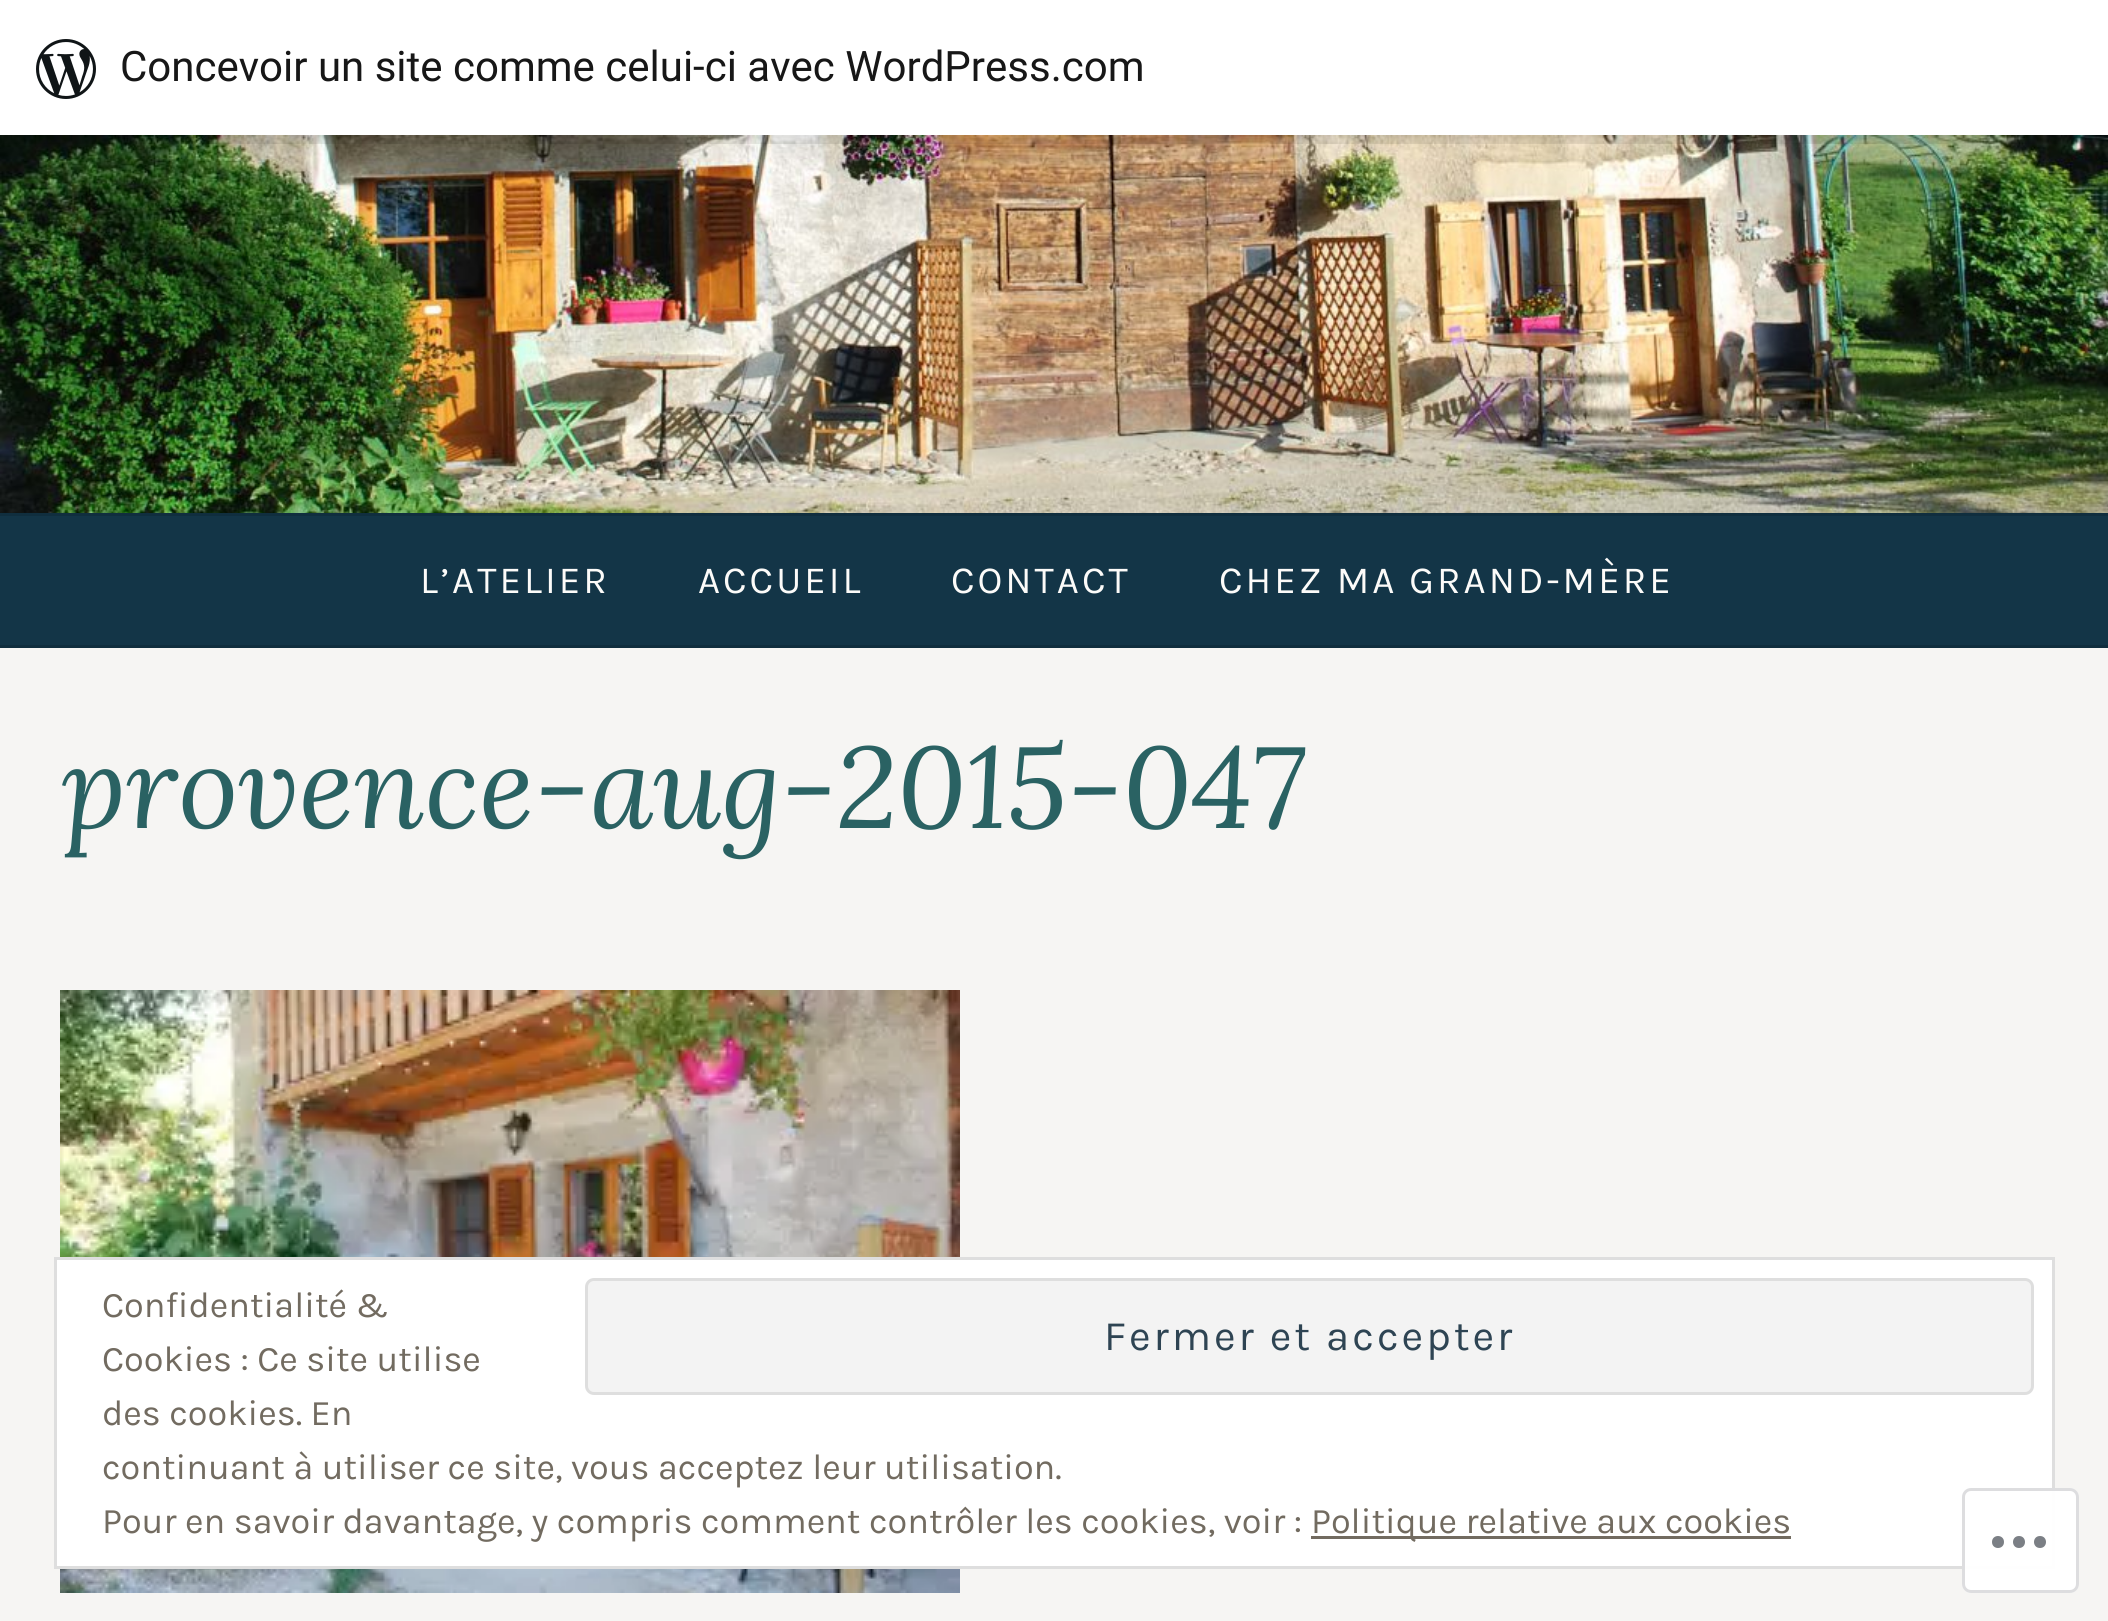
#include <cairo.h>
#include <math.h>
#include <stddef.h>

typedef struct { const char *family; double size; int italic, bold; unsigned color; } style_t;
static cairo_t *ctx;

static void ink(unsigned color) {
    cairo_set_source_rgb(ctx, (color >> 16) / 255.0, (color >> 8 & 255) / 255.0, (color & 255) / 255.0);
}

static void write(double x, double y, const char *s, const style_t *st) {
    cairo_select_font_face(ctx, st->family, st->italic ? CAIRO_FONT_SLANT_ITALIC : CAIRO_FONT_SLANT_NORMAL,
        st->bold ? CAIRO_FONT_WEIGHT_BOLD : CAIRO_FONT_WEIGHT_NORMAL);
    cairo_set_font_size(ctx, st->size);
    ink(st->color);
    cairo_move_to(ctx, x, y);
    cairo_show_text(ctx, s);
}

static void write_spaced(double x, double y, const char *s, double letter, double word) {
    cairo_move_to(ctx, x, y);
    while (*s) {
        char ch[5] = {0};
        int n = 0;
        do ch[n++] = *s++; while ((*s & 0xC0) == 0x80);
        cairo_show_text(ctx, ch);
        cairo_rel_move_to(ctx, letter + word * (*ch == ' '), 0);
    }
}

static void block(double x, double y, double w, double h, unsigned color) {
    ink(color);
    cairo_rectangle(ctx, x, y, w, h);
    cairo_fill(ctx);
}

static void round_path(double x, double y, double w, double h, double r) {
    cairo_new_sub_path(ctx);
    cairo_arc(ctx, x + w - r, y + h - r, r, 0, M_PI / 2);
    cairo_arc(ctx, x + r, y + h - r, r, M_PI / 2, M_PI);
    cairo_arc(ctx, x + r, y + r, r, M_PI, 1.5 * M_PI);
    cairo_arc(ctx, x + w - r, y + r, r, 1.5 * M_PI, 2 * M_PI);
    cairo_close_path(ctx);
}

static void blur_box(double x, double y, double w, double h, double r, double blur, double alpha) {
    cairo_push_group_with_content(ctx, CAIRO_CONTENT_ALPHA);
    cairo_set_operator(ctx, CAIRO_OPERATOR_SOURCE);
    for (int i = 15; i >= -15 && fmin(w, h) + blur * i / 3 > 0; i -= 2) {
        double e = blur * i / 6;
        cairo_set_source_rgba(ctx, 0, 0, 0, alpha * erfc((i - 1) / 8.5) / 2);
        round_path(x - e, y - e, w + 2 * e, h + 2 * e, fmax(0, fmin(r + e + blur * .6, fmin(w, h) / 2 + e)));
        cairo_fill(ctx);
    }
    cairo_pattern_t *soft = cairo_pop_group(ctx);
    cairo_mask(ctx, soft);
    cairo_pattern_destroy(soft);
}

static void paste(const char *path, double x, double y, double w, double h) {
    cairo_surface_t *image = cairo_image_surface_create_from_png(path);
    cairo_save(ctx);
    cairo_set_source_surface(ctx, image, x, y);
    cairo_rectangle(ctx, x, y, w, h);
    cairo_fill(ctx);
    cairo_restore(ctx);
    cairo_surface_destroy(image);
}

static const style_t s1 = {"Roboto", 42, 0, 0, 0x171717};
static const style_t s2 = {"Lora", 115.25, 1, 0, 0x2a6263};
static const style_t s3 = {"Karla", 36, 0, 0, 0x726b60};

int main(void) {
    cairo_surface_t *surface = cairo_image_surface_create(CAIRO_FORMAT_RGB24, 2108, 1621);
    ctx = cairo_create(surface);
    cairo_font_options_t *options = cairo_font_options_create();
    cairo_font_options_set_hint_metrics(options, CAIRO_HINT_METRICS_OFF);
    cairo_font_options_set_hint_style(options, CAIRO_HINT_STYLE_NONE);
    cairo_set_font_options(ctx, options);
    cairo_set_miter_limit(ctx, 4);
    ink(0xf6f5f3);
    cairo_paint(ctx);
    paste("pic2.png", 0, 135, 2108, 378);
    ink(0x000000);
    blur_box(0, 3, 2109, 135, 0, 3, 0.05);
    cairo_set_source_rgba(ctx, 0, 0, 0, 0.08);
    cairo_new_path(ctx);
    cairo_move_to(ctx, 3, 135);
    cairo_line_to(ctx, 3, 144);
    cairo_line_to(ctx, 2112, 144);
    cairo_line_to(ctx, 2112, 9);
    cairo_line_to(ctx, 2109, 9);
    cairo_line_to(ctx, 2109, 135);
    cairo_close_path(ctx);
    cairo_fill(ctx);
    block(0, 0, 2108, 135, 0xffffff);
    paste("pic1.png", 36, 39, 60, 60);
    write(120, 81, "Concevoir un site comme celui-ci avec WordPress.com", &s1);
    block(0, 516, 2108, 129, 0x133547);
    block(0, 513, 2108, 3, 0x102e3e);
    block(0, 645, 2108, 3, 0x102e3e);
    cairo_select_font_face(ctx, "Karla", CAIRO_FONT_SLANT_NORMAL, CAIRO_FONT_WEIGHT_NORMAL);
    cairo_set_font_size(ctx, 38.4);
    ink(0xfcfbf9);
    write_spaced(420, 593, "L’ATELIER", 3, 0);
    write_spaced(698, 593, "ACCUEIL", 3, 0);
    write_spaced(951, 593, "CONTACT", 3, 0);
    write_spaced(1219, 593, "CHEZ MA GRAND-MÈRE", 3, 0);
    write(60, 828, "provence-aug-2015-047", &s2);
    paste("pic3.png", 60, 990, 900, 603);
    ink(0xffffff);
    cairo_rectangle(ctx, 55.5, 1258.5, 1998, 309);
    cairo_fill_preserve(ctx);
    ink(0xdedede);
    cairo_set_line_width(ctx, 3);
    cairo_stroke(ctx);
    write(102, 1317, "Confidentialité &", &s3);
    write(102, 1371, "Cookies : Ce site utilise", &s3);
    ink(0xf3f3f3);
    round_path(586.5, 1279.5, 1446, 114, 7.5);
    cairo_fill_preserve(ctx);
    ink(0xdedede);
    cairo_stroke(ctx);
    cairo_set_font_size(ctx, 42);
    ink(0x2e4453);
    write_spaced(1104, 1350, "Fermer et accepter", 3, 0);
    write(102, 1425, "des cookies. En", &s3);
    write(102, 1479, "continuant à utiliser ce site, vous acceptez leur utilisation.", &s3);
    write(102, 1533, "Pour en savoir davantage, y compris comment contrôler les cookies, voir :", &s3);
    block(1311, 1536, 480, 3, 0x726b60);
    write(1311, 1533, "Politique relative aux cookies", &s3);
    cairo_set_source_rgba(ctx, 1, 1, 1, 0.98);
    round_path(1962, 1488, 117, 105, 9);
    cairo_fill(ctx);
    round_path(1963.5, 1489.5, 114, 102, 7.5);
    cairo_set_source_rgba(ctx, 0.863, 0.863, 0.871, 0.98);
    cairo_stroke(ctx);
    ink(0x7b7f85);
    cairo_new_path(ctx);
    cairo_move_to(ctx, 2004, 1542);
    cairo_curve_to(ctx, 2004, 1550, 1992, 1550, 1992, 1542);
    cairo_curve_to(ctx, 1992, 1534, 2004, 1534, 2004, 1542);
    cairo_close_path(ctx);
    cairo_move_to(ctx, 2040, 1536);
    cairo_curve_to(ctx, 2032, 1536, 2032, 1548, 2040, 1548);
    cairo_curve_to(ctx, 2048, 1548, 2048, 1536, 2040, 1536);
    cairo_close_path(ctx);
    cairo_move_to(ctx, 2019, 1536);
    cairo_curve_to(ctx, 2011, 1536, 2011, 1548, 2019, 1548);
    cairo_curve_to(ctx, 2027, 1548, 2027, 1536, 2019, 1536);
    cairo_close_path(ctx);
    cairo_fill(ctx);
    cairo_surface_write_to_png(surface, "screenshot.png");
    cairo_font_options_destroy(options);
    cairo_destroy(ctx);
    cairo_surface_destroy(surface);
    return 0;
}
